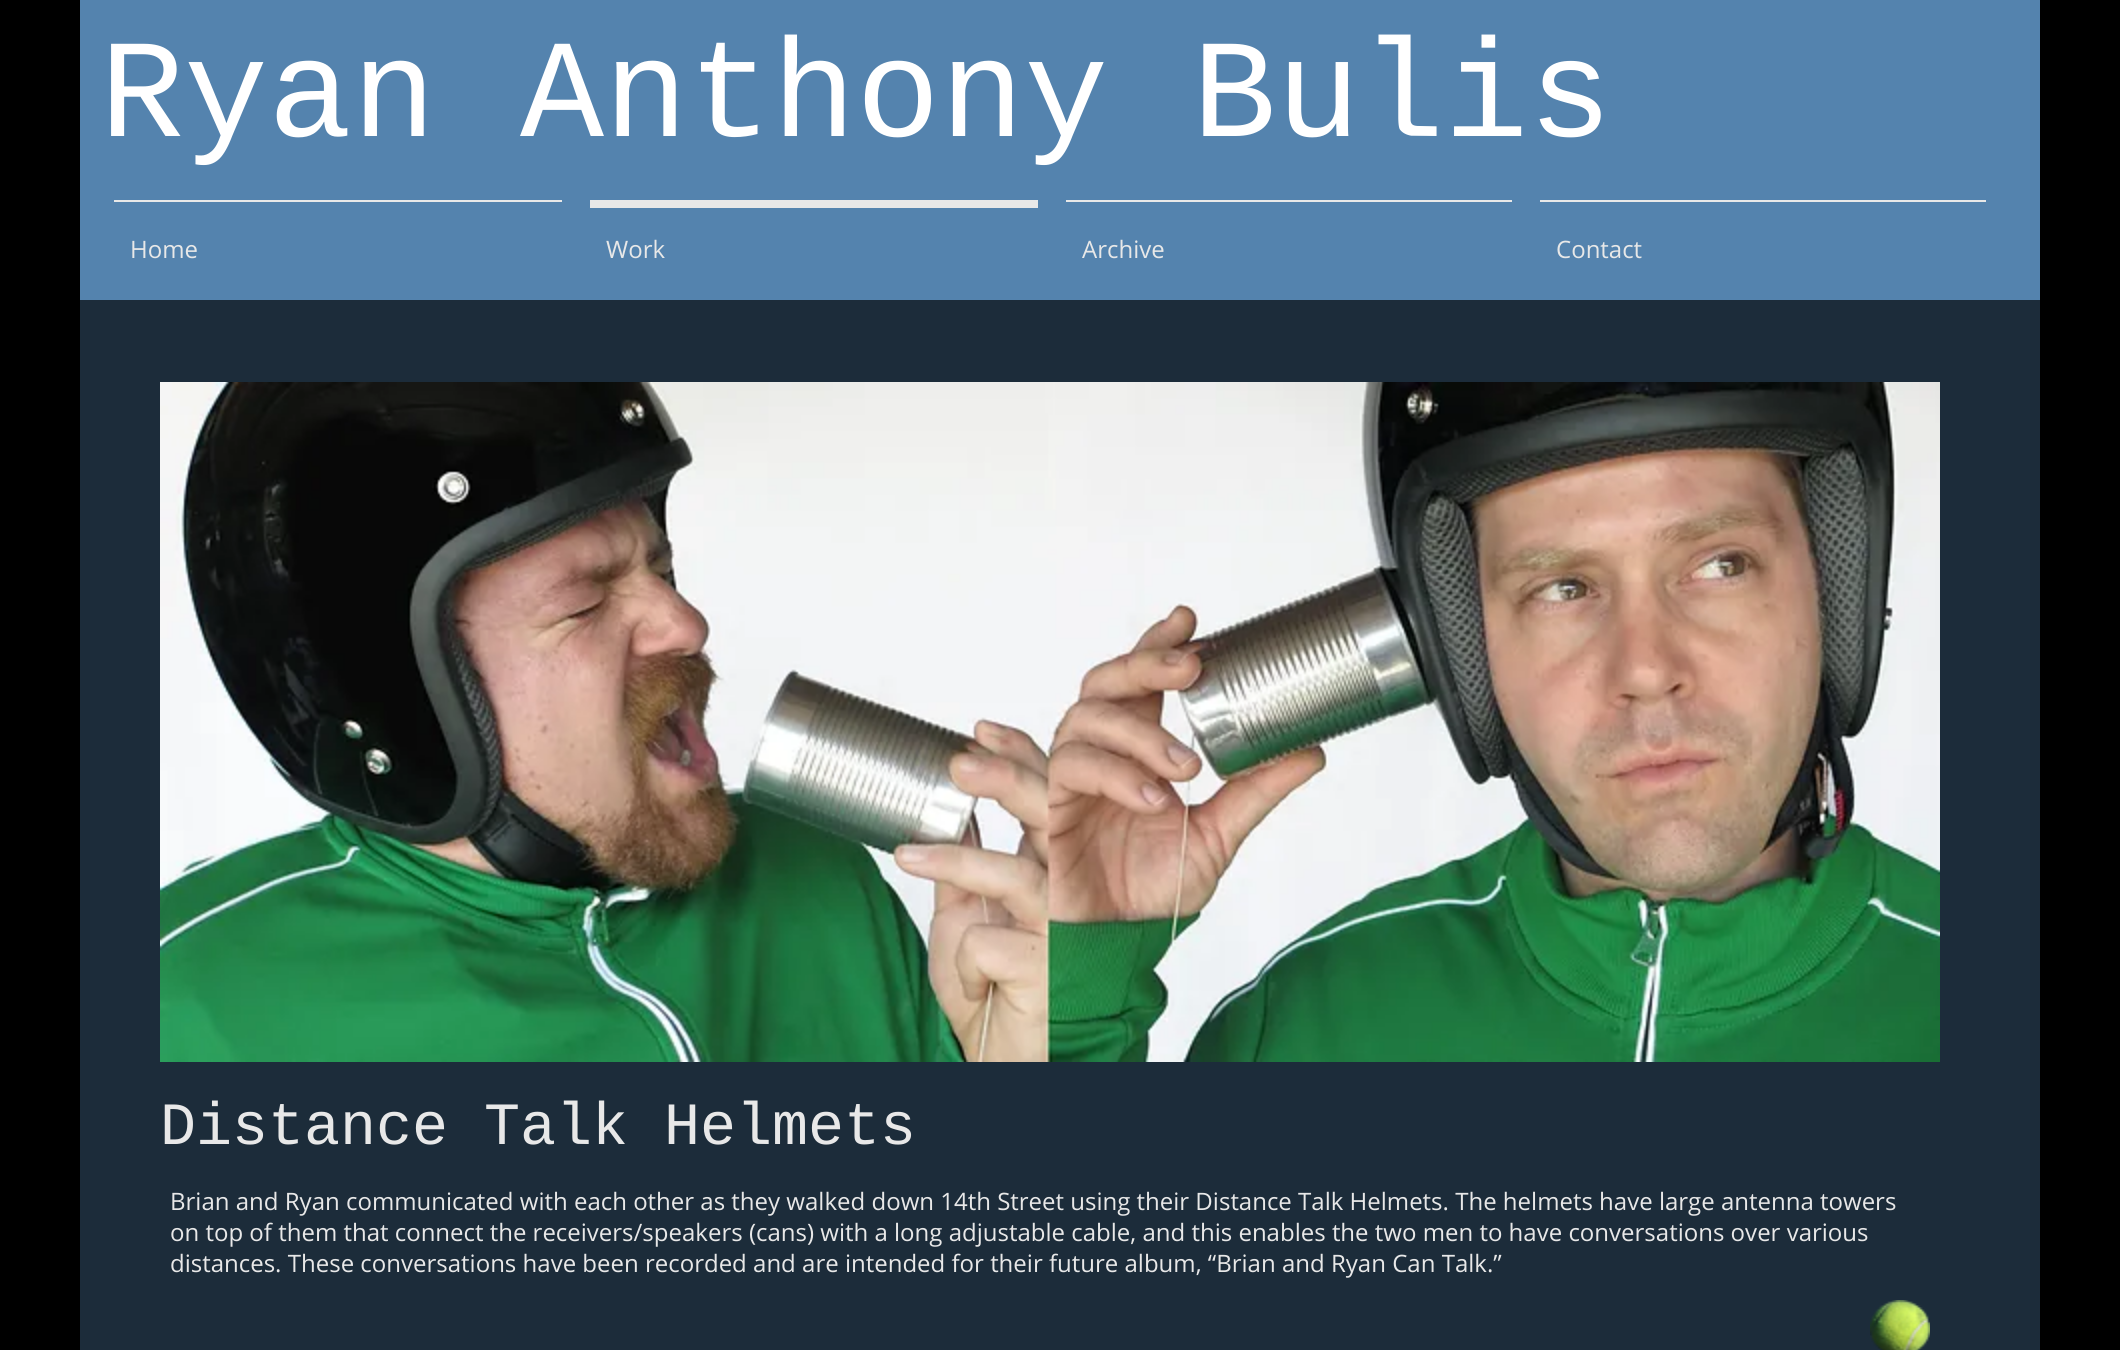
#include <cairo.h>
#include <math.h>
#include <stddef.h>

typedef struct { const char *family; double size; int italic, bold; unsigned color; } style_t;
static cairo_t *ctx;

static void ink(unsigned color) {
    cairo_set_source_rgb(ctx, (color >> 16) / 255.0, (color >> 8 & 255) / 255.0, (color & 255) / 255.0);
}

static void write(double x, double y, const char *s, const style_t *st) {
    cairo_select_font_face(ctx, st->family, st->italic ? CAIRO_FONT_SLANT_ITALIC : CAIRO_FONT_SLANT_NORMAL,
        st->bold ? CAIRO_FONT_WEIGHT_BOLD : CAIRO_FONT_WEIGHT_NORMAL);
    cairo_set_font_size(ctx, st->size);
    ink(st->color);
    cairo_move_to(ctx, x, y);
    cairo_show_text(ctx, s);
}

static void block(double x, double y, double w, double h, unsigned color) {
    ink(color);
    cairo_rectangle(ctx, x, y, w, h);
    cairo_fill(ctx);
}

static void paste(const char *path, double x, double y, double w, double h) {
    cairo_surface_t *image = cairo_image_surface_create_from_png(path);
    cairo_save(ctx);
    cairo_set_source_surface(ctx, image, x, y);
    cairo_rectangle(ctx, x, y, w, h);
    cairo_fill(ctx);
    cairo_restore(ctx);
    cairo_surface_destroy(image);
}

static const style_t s1 = {"Liberation Mono", 140, 0, 0, 0xffffff};
static const style_t s2 = {"Open Sans", 24, 0, 0, 0xe8e8e8};
static const style_t s3 = {"Liberation Mono", 60, 0, 0, 0xe8e8e8};

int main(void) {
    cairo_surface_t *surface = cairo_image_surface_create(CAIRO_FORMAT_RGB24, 2120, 1350);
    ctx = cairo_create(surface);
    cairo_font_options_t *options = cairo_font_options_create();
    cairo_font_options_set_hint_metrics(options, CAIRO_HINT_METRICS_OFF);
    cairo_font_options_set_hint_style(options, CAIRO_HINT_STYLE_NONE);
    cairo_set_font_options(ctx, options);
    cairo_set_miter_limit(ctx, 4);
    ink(0x000000);
    cairo_paint(ctx);
    block(80, 0, 1960, 300, 0x5483ae);
    write(100, 136, "Ryan Anthony Bulis", &s1);
    block(114, 200, 448, 2, 0xe8e8e8);
    write(130, 258, "Home", &s2);
    block(590, 200, 448, 8, 0xe8e8e8);
    write(606, 258, "Work", &s2);
    block(1066, 200, 446, 2, 0xe8e8e8);
    write(1082, 258, "Archive", &s2);
    block(1540, 200, 446, 2, 0xe8e8e8);
    write(1556, 258, "Contact", &s2);
    block(80, 300, 1960, 1050, 0x1c2c3a);
    paste("pic1.png", 160, 382, 1780, 680);
    write(160, 1144, "Distance Talk Helmets", &s3);
    write(170, 1210, "Brian and Ryan communicated with each other as they walked down 14th Street using their Distance Talk Helmets. The helmets have large antenna towers", &s2);
    write(170, 1241, "on top of them that connect the receivers/speakers (cans) with a long adjustable cable, and this enables the two men to have conversations over various", &s2);
    write(170, 1272, "distances. These conversations have been recorded and are intended for their future album, “Brian and Ryan Can Talk.”", &s2);
    paste("pic2.png", 1870, 1300, 60, 50);
    cairo_surface_write_to_png(surface, "screenshot.png");
    cairo_font_options_destroy(options);
    cairo_destroy(ctx);
    cairo_surface_destroy(surface);
    return 0;
}
